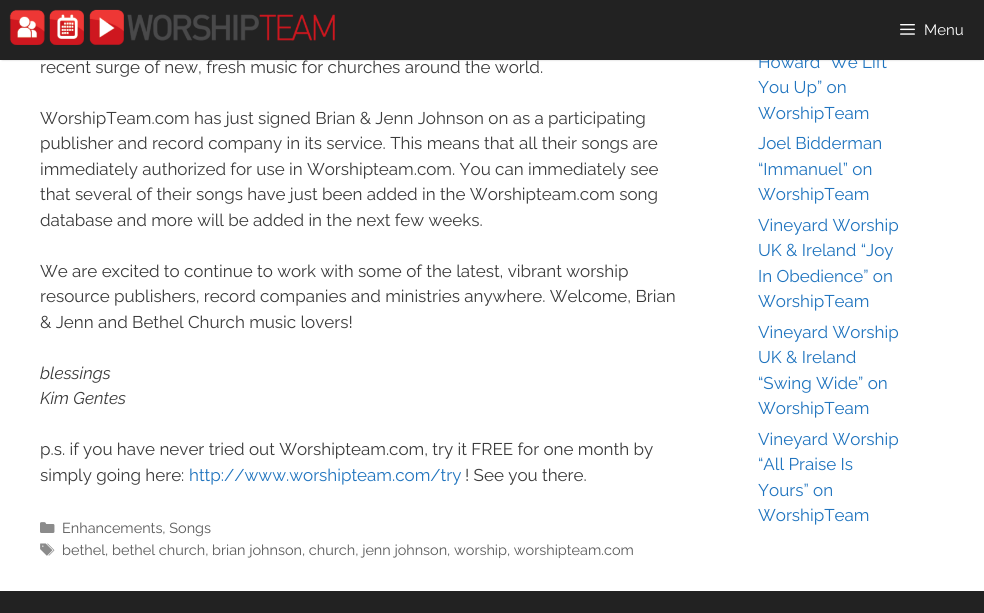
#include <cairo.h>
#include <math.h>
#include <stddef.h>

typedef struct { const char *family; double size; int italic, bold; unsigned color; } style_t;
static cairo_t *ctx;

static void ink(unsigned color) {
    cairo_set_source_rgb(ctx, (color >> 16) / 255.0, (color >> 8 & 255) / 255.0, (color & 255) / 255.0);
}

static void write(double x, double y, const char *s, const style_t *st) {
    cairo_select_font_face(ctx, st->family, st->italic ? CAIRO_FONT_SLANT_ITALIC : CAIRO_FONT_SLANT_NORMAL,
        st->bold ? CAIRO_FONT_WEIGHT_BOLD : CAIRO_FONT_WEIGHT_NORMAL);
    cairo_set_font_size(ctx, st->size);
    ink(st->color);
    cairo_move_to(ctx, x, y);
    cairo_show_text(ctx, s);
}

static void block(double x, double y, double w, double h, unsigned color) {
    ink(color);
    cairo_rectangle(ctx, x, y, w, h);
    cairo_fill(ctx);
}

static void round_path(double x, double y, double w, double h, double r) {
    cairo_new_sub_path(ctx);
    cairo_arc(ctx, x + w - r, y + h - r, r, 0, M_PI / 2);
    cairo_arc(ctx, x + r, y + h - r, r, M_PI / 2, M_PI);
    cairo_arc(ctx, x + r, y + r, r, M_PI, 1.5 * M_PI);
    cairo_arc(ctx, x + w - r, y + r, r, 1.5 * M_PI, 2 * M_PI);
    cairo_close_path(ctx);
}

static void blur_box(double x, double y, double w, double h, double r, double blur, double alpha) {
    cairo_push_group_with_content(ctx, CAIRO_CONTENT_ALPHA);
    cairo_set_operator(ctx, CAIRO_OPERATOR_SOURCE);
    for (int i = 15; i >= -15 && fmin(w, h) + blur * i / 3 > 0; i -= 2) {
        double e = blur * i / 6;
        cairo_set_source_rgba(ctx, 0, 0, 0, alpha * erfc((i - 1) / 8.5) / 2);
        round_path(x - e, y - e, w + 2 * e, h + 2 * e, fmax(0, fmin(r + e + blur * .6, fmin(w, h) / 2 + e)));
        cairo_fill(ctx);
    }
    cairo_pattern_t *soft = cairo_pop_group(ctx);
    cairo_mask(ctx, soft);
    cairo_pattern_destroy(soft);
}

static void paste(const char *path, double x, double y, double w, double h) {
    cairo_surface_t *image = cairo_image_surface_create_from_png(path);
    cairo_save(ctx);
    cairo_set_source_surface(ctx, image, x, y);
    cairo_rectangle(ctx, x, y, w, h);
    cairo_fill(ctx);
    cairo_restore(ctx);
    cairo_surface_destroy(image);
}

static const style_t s1 = {"Raleway", 17, 0, 0, 0x1e73be};
static const style_t s2 = {"Raleway", 15, 0, 0, 0xffffff};
static const style_t s3 = {"Raleway", 17, 0, 0, 0x3a3a3a};
static const style_t s4 = {"Raleway", 17, 1, 0, 0x3a3a3a};
static const style_t s5 = {"Raleway", 14.45, 0, 0, 0x595959};

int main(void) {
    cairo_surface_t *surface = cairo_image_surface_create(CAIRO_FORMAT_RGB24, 984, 613);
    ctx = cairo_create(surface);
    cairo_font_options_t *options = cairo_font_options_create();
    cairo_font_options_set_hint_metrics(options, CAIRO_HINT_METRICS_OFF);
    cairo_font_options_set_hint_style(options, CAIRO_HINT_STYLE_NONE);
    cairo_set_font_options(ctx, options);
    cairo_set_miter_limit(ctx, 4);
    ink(0xffffff);
    cairo_paint(ctx);
    ink(0x000000);
    blur_box(2, 4, 980, 56, 0, 1, 0.2);
    write(758, 68, "Howard “We Lift", &s1);
    block(0, 0, 984, 60, 0x222222);
    paste("pic1.png", 9, 9, 326, 36);
    paste("pic2.png", 900, 24, 15, 11);
    write(924, 35, "Menu", &s2);
    write(40, 73, "recent surge of new, fresh music for churches around the world.", &s3);
    write(40, 124, "WorshipTeam.com has just signed Brian & Jenn Johnson on as a participating", &s3);
    write(40, 149, "publisher and record company in its service. This means that all their songs are", &s3);
    write(40, 175, "immediately authorized for use in Worshipteam.com. You can immediately see", &s3);
    write(40, 200, "that several of their songs have just been added in the Worshipteam.com song", &s3);
    write(40, 226, "database and more will be added in the next few weeks.", &s3);
    write(40, 277, "We are excited to continue to work with some of the latest, vibrant worship", &s3);
    write(40, 302, "resource publishers, record companies and ministries anywhere. Welcome, Brian", &s3);
    write(40, 328, "& Jenn and Bethel Church music lovers!", &s3);
    write(40, 379, "blessings", &s4);
    write(40, 404, "Kim Gentes", &s4);
    write(40, 455, "p.s. if you have never tried out Worshipteam.com, try it FREE for one month by", &s3);
    write(40, 481, "simply going here:", &s3);
    write(189, 481, "http://www.worshipteam.com/try", &s1);
    write(465, 481, "! See you there.", &s3);
    paste("pic3.png", 40, 522, 15, 11);
    write(62, 533, "Enhancements, Songs", &s5);
    paste("pic4.png", 40, 543, 15, 13);
    write(62, 555, "bethel, bethel church, brian johnson, church, jenn johnson, worship, worshipteam.com", &s5);
    write(758, 93, "You Up” on", &s1);
    write(758, 119, "WorshipTeam", &s1);
    write(758, 149, "Joel Bidderman", &s1);
    write(758, 175, "“Immanuel” on", &s1);
    write(758, 200, "WorshipTeam", &s1);
    write(758, 231, "Vineyard Worship", &s1);
    write(758, 256, "UK & Ireland “Joy", &s1);
    write(758, 282, "In Obedience” on", &s1);
    write(758, 307, "WorshipTeam", &s1);
    write(758, 338, "Vineyard Worship", &s1);
    write(758, 363, "UK & Ireland", &s1);
    write(758, 389, "“Swing Wide” on", &s1);
    write(758, 414, "WorshipTeam", &s1);
    write(758, 445, "Vineyard Worship", &s1);
    write(758, 470, "“All Praise Is", &s1);
    write(758, 496, "Yours” on", &s1);
    write(758, 521, "WorshipTeam", &s1);
    block(0, 591, 984, 22, 0x222222);
    cairo_surface_write_to_png(surface, "screenshot.png");
    cairo_font_options_destroy(options);
    cairo_destroy(ctx);
    cairo_surface_destroy(surface);
    return 0;
}
